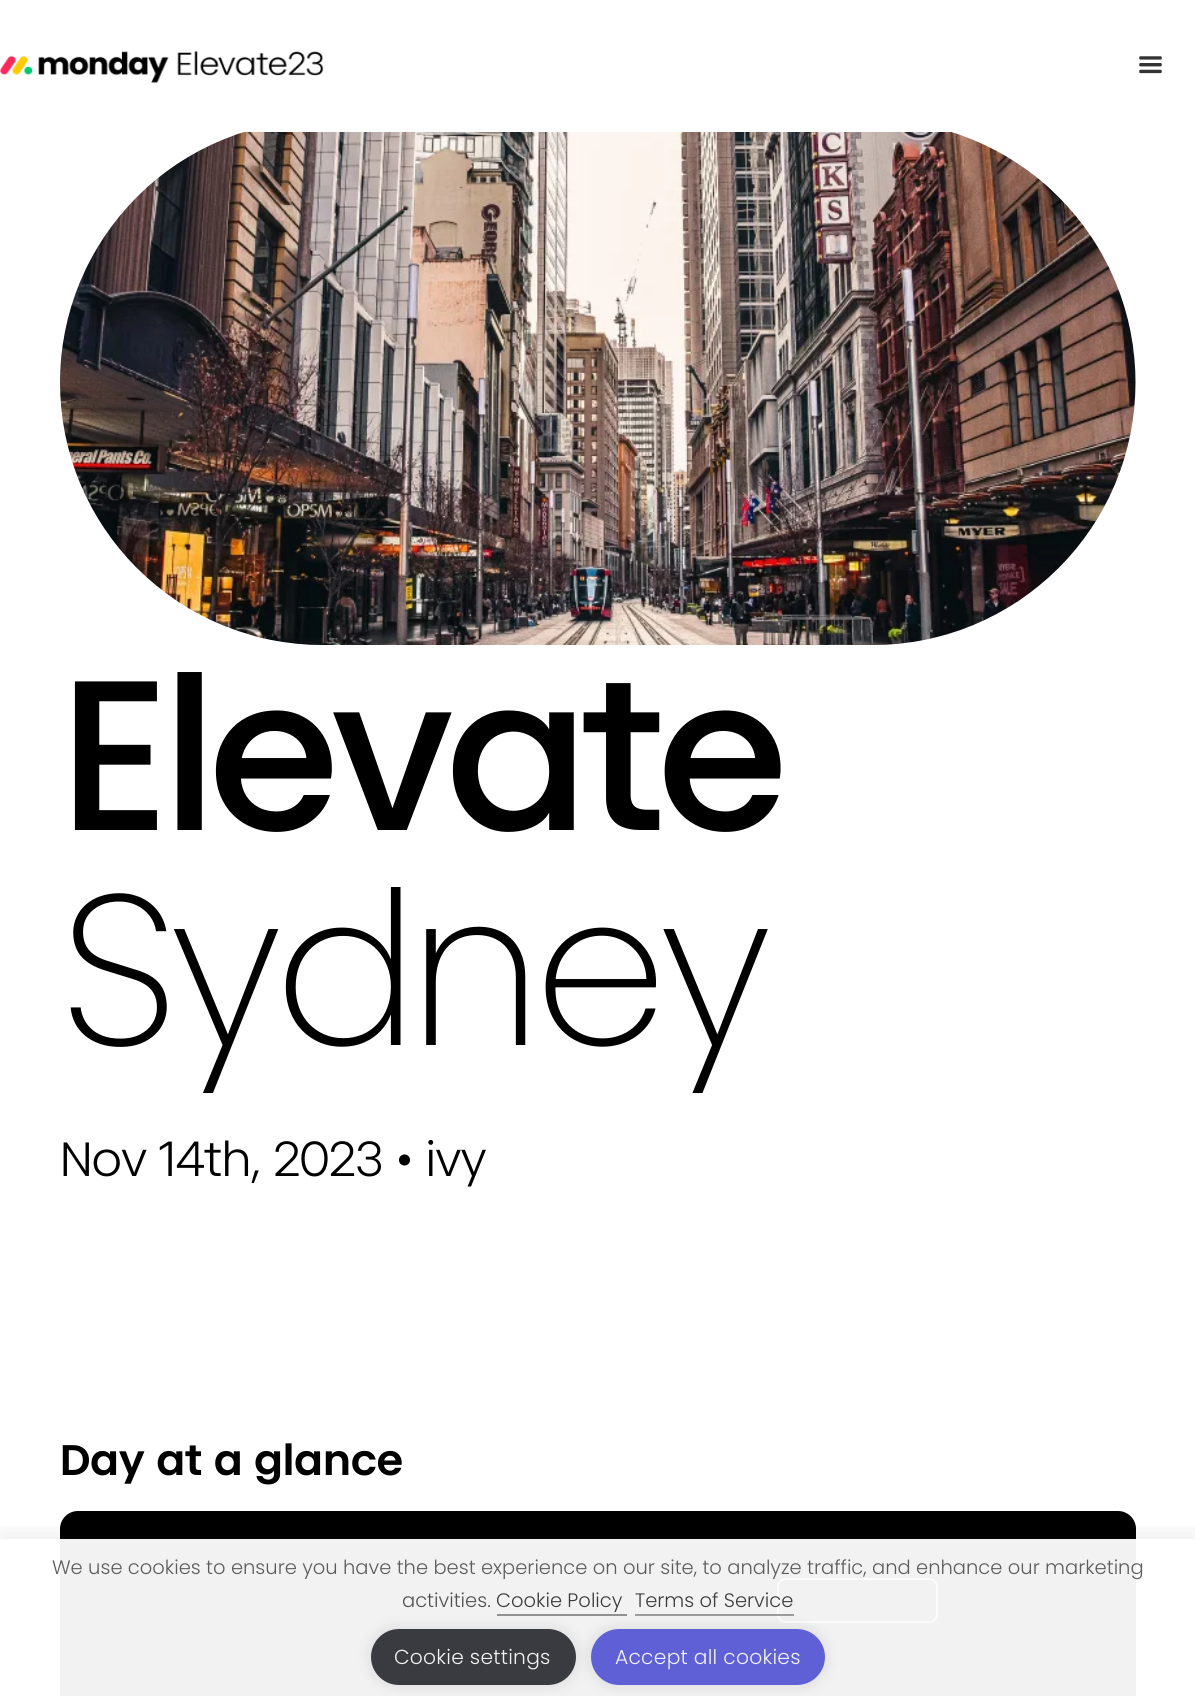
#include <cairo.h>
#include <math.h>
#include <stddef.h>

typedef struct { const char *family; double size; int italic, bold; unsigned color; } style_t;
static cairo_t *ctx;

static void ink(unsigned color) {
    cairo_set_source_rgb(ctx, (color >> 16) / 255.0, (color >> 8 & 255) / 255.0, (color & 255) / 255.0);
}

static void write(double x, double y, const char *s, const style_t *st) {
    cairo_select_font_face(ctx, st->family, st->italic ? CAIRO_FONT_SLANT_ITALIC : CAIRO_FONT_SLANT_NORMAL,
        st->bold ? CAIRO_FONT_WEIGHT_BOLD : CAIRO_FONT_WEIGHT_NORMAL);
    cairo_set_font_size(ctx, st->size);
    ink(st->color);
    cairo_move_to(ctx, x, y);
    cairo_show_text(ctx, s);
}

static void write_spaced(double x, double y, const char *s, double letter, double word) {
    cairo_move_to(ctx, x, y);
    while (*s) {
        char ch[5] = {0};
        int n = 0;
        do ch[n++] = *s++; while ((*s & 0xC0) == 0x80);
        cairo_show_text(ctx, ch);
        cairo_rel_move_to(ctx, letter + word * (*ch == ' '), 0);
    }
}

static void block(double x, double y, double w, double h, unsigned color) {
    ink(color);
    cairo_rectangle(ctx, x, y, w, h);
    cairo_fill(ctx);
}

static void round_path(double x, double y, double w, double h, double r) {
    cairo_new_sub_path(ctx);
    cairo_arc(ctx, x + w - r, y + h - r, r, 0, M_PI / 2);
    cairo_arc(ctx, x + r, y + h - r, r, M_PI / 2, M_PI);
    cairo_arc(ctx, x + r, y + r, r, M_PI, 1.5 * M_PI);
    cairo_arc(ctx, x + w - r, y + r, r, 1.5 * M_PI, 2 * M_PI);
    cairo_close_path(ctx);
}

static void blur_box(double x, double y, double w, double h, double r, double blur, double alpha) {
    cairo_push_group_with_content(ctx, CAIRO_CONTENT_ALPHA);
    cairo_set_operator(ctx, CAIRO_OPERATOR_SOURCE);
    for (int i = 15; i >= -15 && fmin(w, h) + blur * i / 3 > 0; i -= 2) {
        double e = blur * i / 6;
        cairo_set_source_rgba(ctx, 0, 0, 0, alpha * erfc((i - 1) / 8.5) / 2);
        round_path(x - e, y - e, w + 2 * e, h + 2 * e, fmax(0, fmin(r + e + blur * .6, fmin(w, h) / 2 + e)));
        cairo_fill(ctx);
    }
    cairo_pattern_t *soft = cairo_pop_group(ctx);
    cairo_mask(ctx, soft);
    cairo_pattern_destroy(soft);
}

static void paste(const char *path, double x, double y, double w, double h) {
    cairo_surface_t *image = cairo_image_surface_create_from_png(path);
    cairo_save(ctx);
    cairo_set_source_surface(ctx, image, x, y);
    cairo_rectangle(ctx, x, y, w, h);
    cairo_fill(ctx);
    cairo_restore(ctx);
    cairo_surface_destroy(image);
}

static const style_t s1 = {"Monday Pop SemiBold", 42.75, 0, 0, 0x000000};
static const style_t s2 = {"Poppins Light", 19.5, 0, 0, 0x5d5d5d};
static const style_t s3 = {"Poppins Light", 19.5, 0, 0, 0x515151};
static const style_t s4 = {"Poppins Light", 19.5, 0, 0, 0x3d3d3d};

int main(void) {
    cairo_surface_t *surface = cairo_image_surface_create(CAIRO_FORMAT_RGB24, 1195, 1696);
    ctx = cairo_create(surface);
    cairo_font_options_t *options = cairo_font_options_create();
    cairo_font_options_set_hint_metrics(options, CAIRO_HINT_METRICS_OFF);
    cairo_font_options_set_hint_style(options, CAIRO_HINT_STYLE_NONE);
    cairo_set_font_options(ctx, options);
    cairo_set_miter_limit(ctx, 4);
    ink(0xffffff);
    cairo_paint(ctx);
    paste("pic1.png", 0, 50, 324, 33);
    paste("pic2.png", 1139, 56, 23, 18);
    paste("pic3.png", 60, 132, 1076, 513);
    cairo_select_font_face(ctx, "Monday Pop Medium", CAIRO_FONT_SLANT_NORMAL, CAIRO_FONT_WEIGHT_NORMAL);
    cairo_set_font_size(ctx, 213.5);
    ink(0x000000);
    write_spaced(60, 830, "Elevate", -7.25, 0);
    cairo_select_font_face(ctx, "Monday Pop ExtraLight", CAIRO_FONT_SLANT_NORMAL, CAIRO_FONT_WEIGHT_NORMAL);
    write_spaced(60, 1045, "Sydney", -7.25, 0);
    cairo_select_font_face(ctx, "Monday Pop Light", CAIRO_FONT_SLANT_NORMAL, CAIRO_FONT_WEIGHT_NORMAL);
    cairo_set_font_size(ctx, 48);
    write_spaced(60, 1176, "Nov 14th, 2023 • ivy", -1, 0);
    write(60, 1475, "Day at a glance", &s1);
    round_path(60, 1511, 1076, 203, 18);
    cairo_fill(ctx);
    block(60, 1539, 1076, 157, 0xf2f2f2);
    round_path(778, 1579, 159, 43, 8);
    ink(0xfcfcfc);
    cairo_stroke(ctx);
    cairo_save(ctx);
    cairo_rectangle(ctx, 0, 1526, 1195, 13);
    cairo_clip(ctx);
    ink(0x000000);
    blur_box(0, 1539, 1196, 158, 0, 15, 0.1);
    cairo_restore(ctx);
    write(52, 1574, "We use cookies to ensure you have the best experience on our site, to analyze traffic, and enhance our marketing", &s2);
    cairo_save(ctx);
    cairo_set_fill_rule(ctx, CAIRO_FILL_RULE_EVEN_ODD);
    cairo_new_path(ctx);
    cairo_move_to(ctx, 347, 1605);
    cairo_line_to(ctx, 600, 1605);
    cairo_line_to(ctx, 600, 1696);
    cairo_line_to(ctx, 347, 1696);
    cairo_close_path(ctx);
    cairo_move_to(ctx, 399, 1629);
    cairo_line_to(ctx, 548, 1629);
    cairo_curve_to(ctx, 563.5, 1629, 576, 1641.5, 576, 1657);
    cairo_curve_to(ctx, 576, 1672.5, 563.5, 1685, 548, 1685);
    cairo_line_to(ctx, 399, 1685);
    cairo_curve_to(ctx, 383.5, 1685, 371, 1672.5, 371, 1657);
    cairo_curve_to(ctx, 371, 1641.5, 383.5, 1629, 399, 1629);
    cairo_close_path(ctx);
    cairo_clip(ctx);
    ink(0x000000);
    blur_box(371, 1629, 205, 56, 28, 7.5, 0.11);
    cairo_restore(ctx);
    write(402, 1607, "activities.", &s3);
    cairo_set_source_rgba(ctx, 0.196, 0.2, 0.22, 0.95);
    round_path(371, 1629, 205, 56, 28);
    cairo_fill(ctx);
    cairo_save(ctx);
    cairo_set_fill_rule(ctx, CAIRO_FILL_RULE_EVEN_ODD);
    cairo_new_path(ctx);
    cairo_move_to(ctx, 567, 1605);
    cairo_line_to(ctx, 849, 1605);
    cairo_line_to(ctx, 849, 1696);
    cairo_line_to(ctx, 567, 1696);
    cairo_close_path(ctx);
    cairo_move_to(ctx, 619, 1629);
    cairo_line_to(ctx, 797, 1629);
    cairo_curve_to(ctx, 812.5, 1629, 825, 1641.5, 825, 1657);
    cairo_curve_to(ctx, 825, 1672.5, 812.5, 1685, 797, 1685);
    cairo_line_to(ctx, 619, 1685);
    cairo_curve_to(ctx, 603.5, 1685, 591, 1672.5, 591, 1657);
    cairo_curve_to(ctx, 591, 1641.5, 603.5, 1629, 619, 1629);
    cairo_close_path(ctx);
    cairo_clip(ctx);
    ink(0x000000);
    blur_box(591, 1629, 234, 56, 28, 7.5, 0.11);
    cairo_restore(ctx);
    write(496, 1607, "Cookie Policy", &s4);
    block(497, 1614, 130, 2, 0x919191);
    write(635, 1607, "Terms of Service", &s4);
    cairo_set_source_rgba(ctx, 0.6, 0.6, 0.6, 0.95);
    cairo_rectangle(ctx, 635, 1614, 159, 2);
    cairo_fill(ctx);
    cairo_set_font_size(ctx, 20.25);
    ink(0xf2f2f2);
    write_spaced(394, 1664, "Cookie settings", 0.25, 0);
    cairo_set_source_rgba(ctx, 0.349, 0.353, 0.831, 0.95);
    round_path(591, 1629, 234, 56, 28);
    cairo_fill(ctx);
    ink(0xf2f2f2);
    write_spaced(615, 1664, "Accept all cookies", 0.25, 0);
    cairo_surface_write_to_png(surface, "screenshot.png");
    cairo_font_options_destroy(options);
    cairo_destroy(ctx);
    cairo_surface_destroy(surface);
    return 0;
}
